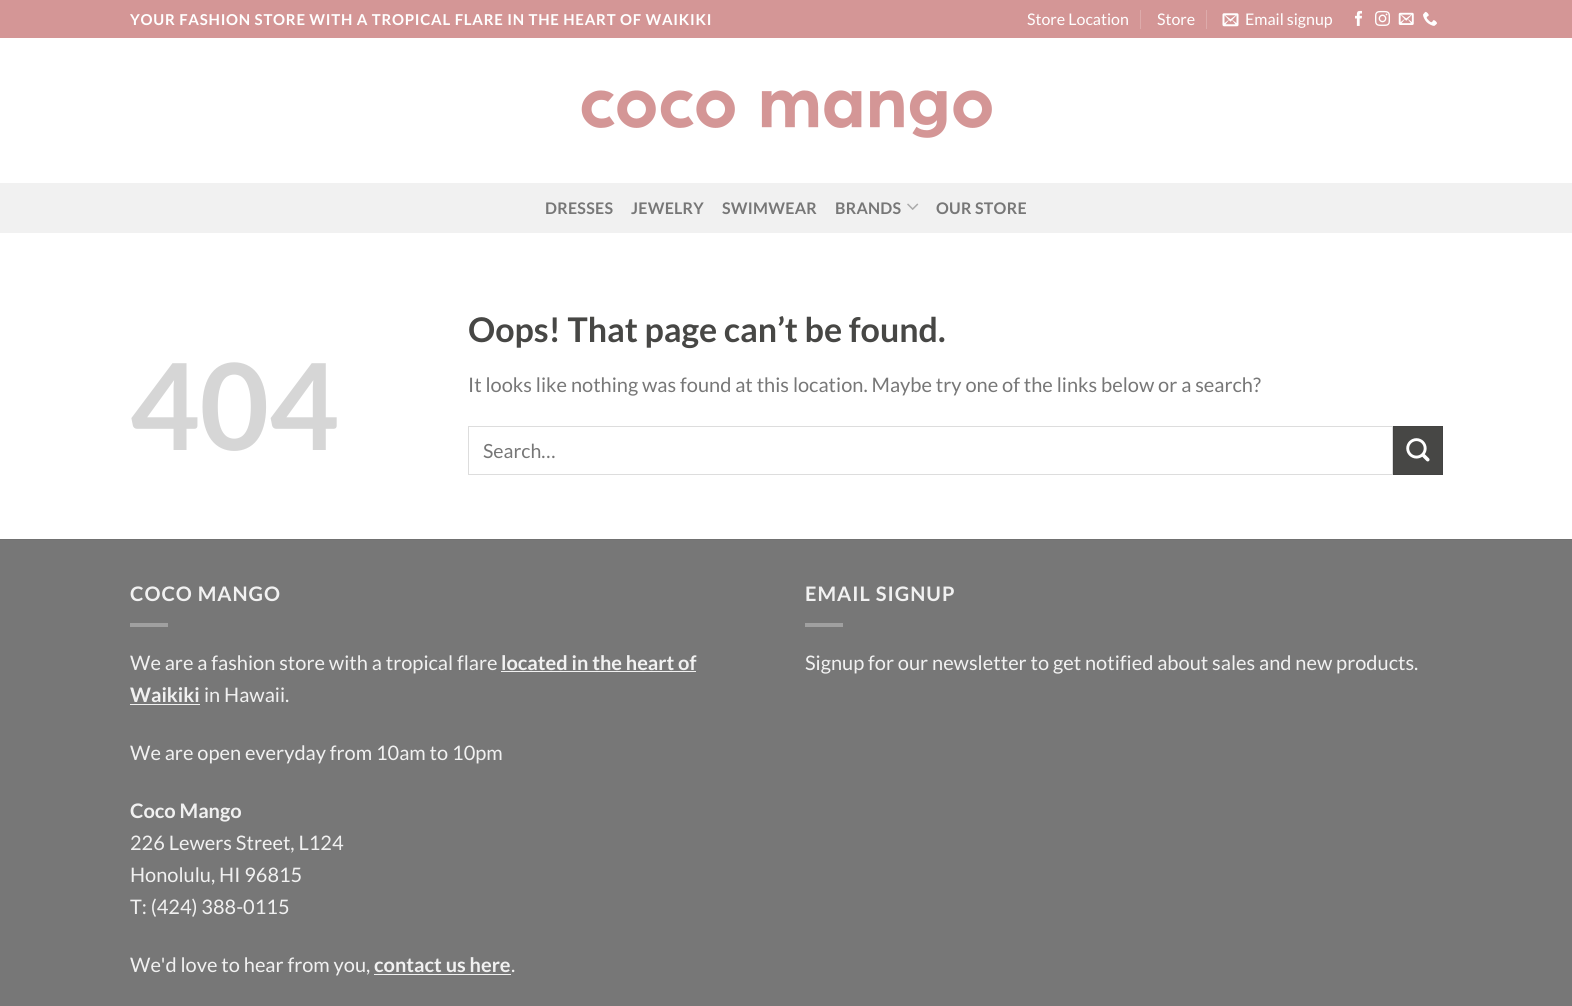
#include <cairo.h>
#include <math.h>
#include <stddef.h>

typedef struct { const char *family; double size; int italic, bold; unsigned color; } style_t;
static cairo_t *ctx;

static void ink(unsigned color) {
    cairo_set_source_rgb(ctx, (color >> 16) / 255.0, (color >> 8 & 255) / 255.0, (color & 255) / 255.0);
}

static void write(double x, double y, const char *s, const style_t *st) {
    cairo_select_font_face(ctx, st->family, st->italic ? CAIRO_FONT_SLANT_ITALIC : CAIRO_FONT_SLANT_NORMAL,
        st->bold ? CAIRO_FONT_WEIGHT_BOLD : CAIRO_FONT_WEIGHT_NORMAL);
    cairo_set_font_size(ctx, st->size);
    ink(st->color);
    cairo_move_to(ctx, x, y);
    cairo_show_text(ctx, s);
}

static void write_spaced(double x, double y, const char *s, double letter, double word) {
    cairo_move_to(ctx, x, y);
    while (*s) {
        char ch[5] = {0};
        int n = 0;
        do ch[n++] = *s++; while ((*s & 0xC0) == 0x80);
        cairo_show_text(ctx, ch);
        cairo_rel_move_to(ctx, letter + word * (*ch == ' '), 0);
    }
}

static void block(double x, double y, double w, double h, unsigned color) {
    ink(color);
    cairo_rectangle(ctx, x, y, w, h);
    cairo_fill(ctx);
}

static void paste(const char *path, double x, double y, double w, double h) {
    cairo_surface_t *image = cairo_image_surface_create_from_png(path);
    cairo_save(ctx);
    cairo_set_source_surface(ctx, image, x, y);
    cairo_rectangle(ctx, x, y, w, h);
    cairo_fill(ctx);
    cairo_restore(ctx);
    cairo_surface_destroy(image);
}

static const style_t s1 = {"Lato", 16, 0, 0, 0xffffff};
static const style_t s2 = {"Lato", 120, 0, 1, 0xd6d6d6};
static const style_t s3 = {"Lato", 34, 0, 1, 0x474745};
static const style_t s4 = {"Lato", 20, 0, 0, 0x777777};
static const style_t s5 = {"Lato", 19.5, 0, 0, 0x777777};
static const style_t s6 = {"Lato", 20, 0, 0, 0xf1f1f1};
static const style_t s7 = {"Lato", 20, 0, 1, 0xf1f1f1};

int main(void) {
    cairo_surface_t *surface = cairo_image_surface_create(CAIRO_FORMAT_RGB24, 1572, 1006);
    ctx = cairo_create(surface);
    cairo_font_options_t *options = cairo_font_options_create();
    cairo_font_options_set_hint_metrics(options, CAIRO_HINT_METRICS_OFF);
    cairo_font_options_set_hint_style(options, CAIRO_HINT_STYLE_NONE);
    cairo_set_font_options(ctx, options);
    cairo_set_miter_limit(ctx, 4);
    ink(0xffffff);
    cairo_paint(ctx);
    block(0, 0, 1572, 38, 0xd49696);
    cairo_select_font_face(ctx, "Lato", CAIRO_FONT_SLANT_NORMAL, CAIRO_FONT_WEIGHT_BOLD);
    cairo_set_font_size(ctx, 15);
    ink(0xffffff);
    write_spaced(130, 25, "YOUR FASHION STORE WITH A TROPICAL FLARE IN THE HEART OF WAIKIKI", 0.75, 0);
    write(1027, 25, "Store Location", &s1);
    block(1140, 10, 1, 19, 0xddabab);
    write(1157, 25, "Store", &s1);
    block(1206, 10, 1, 19, 0xddabab);
    paste("pic1.png", 1222, 13, 17, 14);
    write(1245, 25, "Email signup", &s1);
    paste("pic2.png", 1355, 10, 7, 16);
    paste("pic3.png", 1375, 10, 15, 16);
    paste("pic4.png", 1398, 12, 16, 13);
    paste("pic5.png", 1423, 11, 14, 15);
    paste("pic6.png", 581, 90, 411, 48);
    block(0, 183, 1572, 50, 0xf1f1f1);
    cairo_select_font_face(ctx, "Lato", CAIRO_FONT_SLANT_NORMAL, CAIRO_FONT_WEIGHT_BOLD);
    ink(0x777777);
    write_spaced(545, 214, "DRESSES", 0.25, 0);
    write_spaced(631, 214, "JEWELRY", 0.25, 0);
    write_spaced(722, 214, "SWIMWEAR", 0.25, 0);
    write_spaced(835, 214, "BRANDS", 0.25, 0);
    paste("pic7.png", 907, 203, 12, 7);
    write_spaced(936, 214, "OUR STORE", 0.25, 0);
    write(130, 450, "404", &s2);
    write(468, 342, "Oops! That page can’t be found.", &s3);
    write(468, 392, "It looks like nothing was found at this location. Maybe try one of the links below or a search?", &s4);
    cairo_rectangle(ctx, 468.5, 426.5, 924, 48);
    ink(0xdddddd);
    cairo_set_line_width(ctx, 1);
    cairo_stroke(ctx);
    write(483, 458, "Search…", &s5);
    ink(0x474745);
    cairo_rectangle(ctx, 1393.5, 426.5, 49, 48);
    cairo_fill_preserve(ctx);
    ink(0x434342);
    cairo_stroke(ctx);
    paste("pic8.png", 1406, 438, 24, 24);
    block(0, 540, 1572, 466, 0x777777);
    block(0, 539, 1572, 1, 0x717171);
    cairo_select_font_face(ctx, "Lato", CAIRO_FONT_SLANT_NORMAL, CAIRO_FONT_WEIGHT_BOLD);
    cairo_set_font_size(ctx, 20);
    ink(0xf1f1f1);
    write_spaced(130, 601, "COCO MANGO", 1, 0);
    block(130, 623, 38, 4, 0xa0a0a0);
    write(130, 670, "We are a fashion store with a tropical flare", &s6);
    write(501, 670, "located in the heart of", &s7);
    block(501, 671, 195, 1, 0xf1f1f1);
    write(130, 702, "Waikiki", &s7);
    block(130, 704, 70, 1, 0xf1f1f1);
    write(204, 702, "in Hawaii.", &s6);
    write(130, 760, "We are open everyday from 10am to 10pm", &s6);
    write(130, 818, "Coco Mango", &s7);
    write(130, 850, "226 Lewers Street, L124", &s6);
    write(130, 882, "Honolulu, HI 96815", &s6);
    write(130, 914, "T: (424) 388-0115", &s6);
    write(130, 972, "We'd love to hear from you,", &s6);
    write(374, 972, "contact us here", &s7);
    block(374, 974, 137, 1, 0xf1f1f1);
    write(511, 972, ".", &s6);
    cairo_select_font_face(ctx, "Lato", CAIRO_FONT_SLANT_NORMAL, CAIRO_FONT_WEIGHT_BOLD);
    write_spaced(805, 601, "EMAIL SIGNUP", 1, 0);
    block(805, 623, 38, 4, 0xa0a0a0);
    write(805, 670, "Signup for our newsletter to get notified about sales and new products.", &s6);
    cairo_surface_write_to_png(surface, "screenshot.png");
    cairo_font_options_destroy(options);
    cairo_destroy(ctx);
    cairo_surface_destroy(surface);
    return 0;
}
